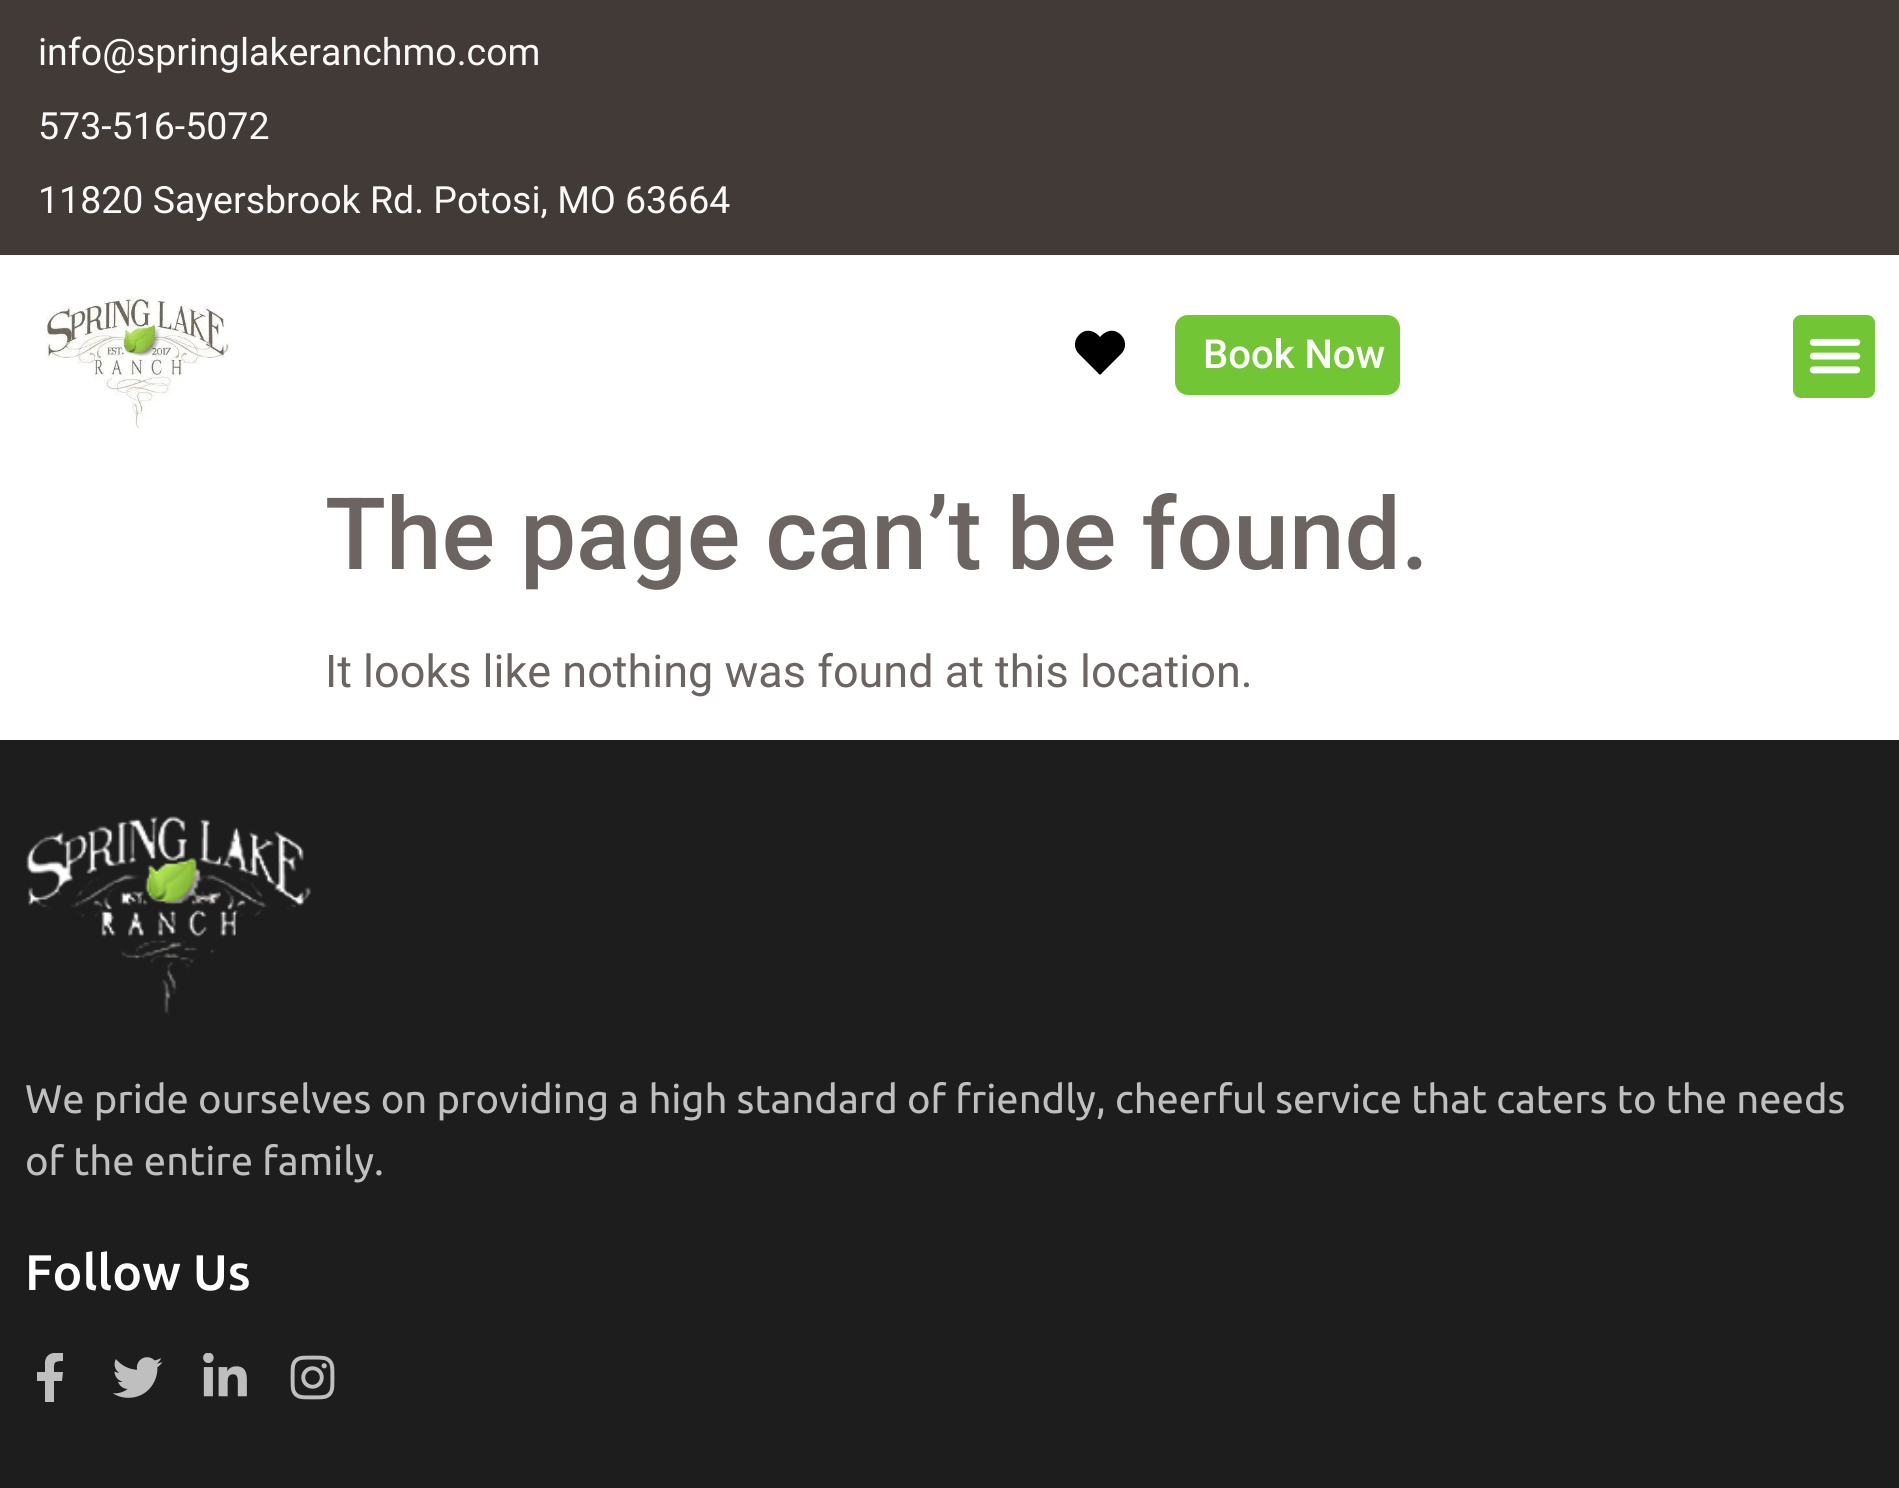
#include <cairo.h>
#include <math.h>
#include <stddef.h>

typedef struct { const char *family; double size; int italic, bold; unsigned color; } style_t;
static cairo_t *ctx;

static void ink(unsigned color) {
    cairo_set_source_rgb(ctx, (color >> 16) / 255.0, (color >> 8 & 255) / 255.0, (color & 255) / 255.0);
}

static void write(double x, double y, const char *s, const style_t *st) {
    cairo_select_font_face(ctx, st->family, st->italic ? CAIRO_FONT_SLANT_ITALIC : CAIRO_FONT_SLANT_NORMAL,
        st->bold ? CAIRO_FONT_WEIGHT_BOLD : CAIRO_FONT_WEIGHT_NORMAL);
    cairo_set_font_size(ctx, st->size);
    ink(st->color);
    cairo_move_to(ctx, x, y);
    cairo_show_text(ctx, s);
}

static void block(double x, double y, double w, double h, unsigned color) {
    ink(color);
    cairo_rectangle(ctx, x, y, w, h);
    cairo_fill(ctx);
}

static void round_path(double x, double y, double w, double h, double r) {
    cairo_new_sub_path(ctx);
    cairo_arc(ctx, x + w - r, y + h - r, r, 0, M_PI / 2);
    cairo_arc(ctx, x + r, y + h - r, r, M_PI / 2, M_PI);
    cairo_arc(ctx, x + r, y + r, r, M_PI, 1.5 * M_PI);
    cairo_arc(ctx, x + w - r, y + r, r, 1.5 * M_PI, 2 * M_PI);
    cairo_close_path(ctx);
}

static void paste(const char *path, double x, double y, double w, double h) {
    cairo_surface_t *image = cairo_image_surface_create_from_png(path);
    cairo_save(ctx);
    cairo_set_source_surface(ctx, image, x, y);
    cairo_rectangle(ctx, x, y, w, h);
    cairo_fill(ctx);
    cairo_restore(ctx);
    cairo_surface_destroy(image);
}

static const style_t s1 = {"Roboto", 37.5, 0, 0, 0xf9f9f9};
static const style_t s2 = {"Roboto Medium", 40, 0, 0, 0xffffff};
static const style_t s3 = {"Roboto Medium", 100, 0, 0, 0x6b6460};
static const style_t s4 = {"Roboto", 45, 0, 0, 0x6b6460};
static const style_t s5 = {"Ubuntu", 40, 0, 0, 0xbfbfbf};
static const style_t s6 = {"Ubuntu Medium", 50, 0, 0, 0xffffff};

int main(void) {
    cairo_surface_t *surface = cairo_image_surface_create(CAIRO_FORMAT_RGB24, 1899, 1488);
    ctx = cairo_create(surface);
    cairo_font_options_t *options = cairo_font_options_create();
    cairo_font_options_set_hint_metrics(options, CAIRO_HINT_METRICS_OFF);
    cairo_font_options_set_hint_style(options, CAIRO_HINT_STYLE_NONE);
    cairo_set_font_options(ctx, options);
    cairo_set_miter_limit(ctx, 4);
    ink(0xffffff);
    cairo_paint(ctx);
    block(0, 0, 1899, 255, 0x423a36);
    write(38, 65, "info@springlakeranchmo.com", &s1);
    write(38, 139, "573-516-5072", &s1);
    write(38, 213, "11820 Sayersbrook Rd. Potosi, MO 63664", &s1);
    paste("pic1.png", 46, 296, 184, 133);
    ink(0x000000);
    cairo_new_path(ctx);
    cairo_move_to(ctx, 1120, 334);
    cairo_curve_to(ctx, 1113, 328, 1105, 331, 1100, 337);
    cairo_line_to(ctx, 1098, 335);
    cairo_curve_to(ctx, 1093, 330, 1085, 329, 1080, 334);
    cairo_curve_to(ctx, 1074, 339, 1073, 348, 1079, 354);
    cairo_line_to(ctx, 1098, 373);
    cairo_curve_to(ctx, 1099, 375, 1101, 375, 1102, 373);
    cairo_line_to(ctx, 1121, 354);
    cairo_curve_to(ctx, 1127, 348, 1126, 339, 1120, 334);
    cairo_close_path(ctx);
    cairo_fill(ctx);
    ink(0x72c635);
    round_path(1175, 315, 225, 80, 13);
    cairo_fill(ctx);
    write(1203, 368, "Book Now", &s2);
    ink(0x72c635);
    round_path(1793, 315, 82, 83, 8);
    cairo_fill(ctx);
    paste("pic2.png", 1809, 338, 52, 36);
    write(325, 569, "The page can’t be found.", &s3);
    write(325, 687, "It looks like nothing was found at this location.", &s4);
    block(0, 740, 1899, 748, 0x1d1d1d);
    paste("pic3.png", 26, 816, 285, 200);
    write(25, 1113, "We pride ourselves on providing a high standard of friendly, cheerful service that caters to the needs", &s5);
    write(25, 1175, "of the entire family.", &s5);
    write(25, 1290, "Follow Us", &s6);
    cairo_save(ctx);
    cairo_rectangle(ctx, 25, 1353, 50, 50);
    cairo_clip(ctx);
    ink(0xbfbfbf);
    cairo_new_path(ctx);
    cairo_move_to(ctx, 62, 1381);
    cairo_line_to(ctx, 63, 1372);
    cairo_line_to(ctx, 54, 1372);
    cairo_curve_to(ctx, 54, 1363, 53, 1361, 63, 1361);
    cairo_line_to(ctx, 63, 1353);
    cairo_curve_to(ctx, 56, 1352, 46, 1352, 45, 1362);
    cairo_line_to(ctx, 45, 1372);
    cairo_line_to(ctx, 37, 1372);
    cairo_line_to(ctx, 37, 1381);
    cairo_line_to(ctx, 45, 1381);
    cairo_line_to(ctx, 45, 1402);
    cairo_line_to(ctx, 54, 1402);
    cairo_line_to(ctx, 54, 1381);
    cairo_close_path(ctx);
    cairo_fill(ctx);
    cairo_restore(ctx);
    paste("pic4.png", 113, 1357, 50, 41);
    paste("pic5.png", 203, 1353, 44, 44);
    paste("pic6.png", 290, 1355, 45, 45);
    cairo_surface_write_to_png(surface, "screenshot.png");
    cairo_font_options_destroy(options);
    cairo_destroy(ctx);
    cairo_surface_destroy(surface);
    return 0;
}
